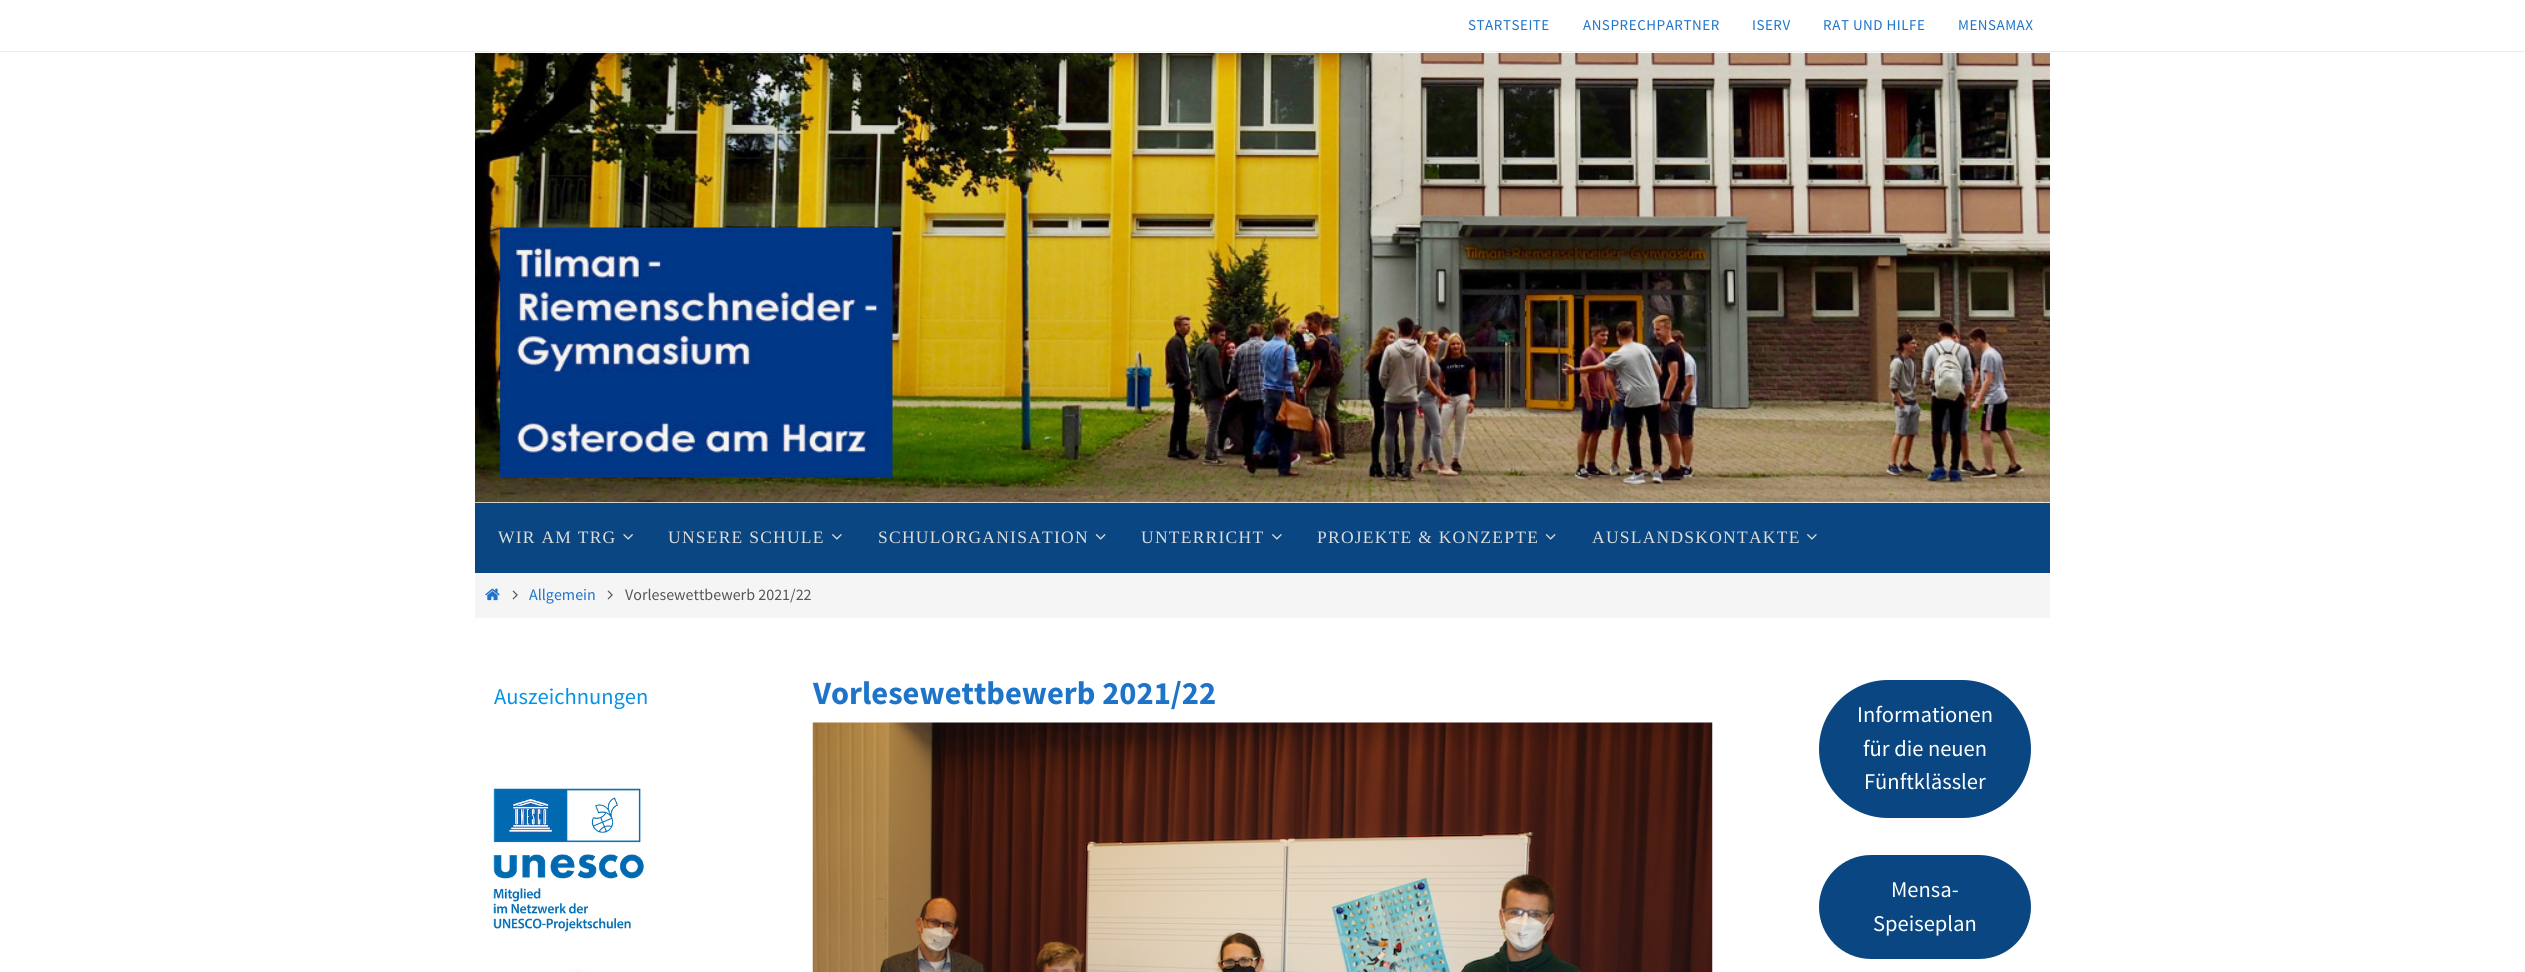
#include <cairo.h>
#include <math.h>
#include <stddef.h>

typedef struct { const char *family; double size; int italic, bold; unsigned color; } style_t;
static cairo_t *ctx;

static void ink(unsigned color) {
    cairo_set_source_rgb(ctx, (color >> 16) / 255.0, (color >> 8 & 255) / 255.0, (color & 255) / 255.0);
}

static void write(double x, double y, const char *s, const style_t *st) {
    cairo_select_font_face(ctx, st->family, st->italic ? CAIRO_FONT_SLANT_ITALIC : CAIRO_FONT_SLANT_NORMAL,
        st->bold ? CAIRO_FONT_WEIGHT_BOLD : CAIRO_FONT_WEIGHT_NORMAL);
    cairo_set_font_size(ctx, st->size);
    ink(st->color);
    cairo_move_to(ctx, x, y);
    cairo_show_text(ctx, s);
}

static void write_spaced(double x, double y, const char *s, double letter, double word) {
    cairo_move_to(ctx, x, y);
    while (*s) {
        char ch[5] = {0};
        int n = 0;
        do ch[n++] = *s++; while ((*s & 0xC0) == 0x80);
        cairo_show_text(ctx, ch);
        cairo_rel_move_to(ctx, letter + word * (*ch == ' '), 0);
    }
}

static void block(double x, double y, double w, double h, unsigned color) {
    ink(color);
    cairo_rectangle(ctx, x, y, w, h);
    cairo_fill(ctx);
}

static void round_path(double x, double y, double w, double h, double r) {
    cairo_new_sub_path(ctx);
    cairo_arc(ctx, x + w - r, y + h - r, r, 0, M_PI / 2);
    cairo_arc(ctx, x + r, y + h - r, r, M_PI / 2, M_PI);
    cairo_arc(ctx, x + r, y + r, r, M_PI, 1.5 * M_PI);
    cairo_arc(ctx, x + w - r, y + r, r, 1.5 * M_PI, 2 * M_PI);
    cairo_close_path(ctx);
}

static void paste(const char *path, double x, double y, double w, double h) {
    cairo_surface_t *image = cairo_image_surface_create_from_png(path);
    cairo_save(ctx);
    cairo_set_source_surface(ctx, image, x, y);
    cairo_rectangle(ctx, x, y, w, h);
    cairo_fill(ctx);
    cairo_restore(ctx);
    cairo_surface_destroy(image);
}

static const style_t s1 = {"Source Sans Pro", 16, 0, 0, 0x1e74c8};
static const style_t s2 = {"Source Sans Pro", 16, 0, 0, 0x555555};
static const style_t s3 = {"Source Sans Pro", 22.5, 0, 0, 0x0693e3};
static const style_t s4 = {"Source Sans Pro", 32.5, 0, 1, 0x1e74c8};
static const style_t s5 = {"Source Sans Pro", 22.5, 0, 0, 0xffffff};

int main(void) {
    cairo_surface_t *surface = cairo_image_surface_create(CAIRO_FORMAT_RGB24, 2525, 972);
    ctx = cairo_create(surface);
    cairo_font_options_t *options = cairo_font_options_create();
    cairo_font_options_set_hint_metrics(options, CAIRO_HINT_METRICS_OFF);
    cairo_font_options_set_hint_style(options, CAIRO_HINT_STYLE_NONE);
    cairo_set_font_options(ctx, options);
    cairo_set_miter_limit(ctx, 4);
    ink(0xffffff);
    cairo_paint(ctx);
    block(0, 51, 2525, 1, 0xebebeb);
    cairo_select_font_face(ctx, "Source Sans Pro", CAIRO_FONT_SLANT_NORMAL, CAIRO_FONT_WEIGHT_NORMAL);
    cairo_set_font_size(ctx, 15);
    ink(0x1e74c8);
    write_spaced(1468, 30, "STARTSEITE", 0.5, 0);
    write_spaced(1583, 30, "ANSPRECHPARTNER", 0.5, 0);
    write_spaced(1752, 30, "ISERV", 0.5, 0);
    write_spaced(1823, 30, "RAT UND HILFE", 0.5, 0);
    write_spaced(1958, 30, "MENSAMAX", 0.5, 0);
    paste("pic1.png", 475, 53, 1575, 450);
    block(475, 503, 1575, 70, 0x0a4782);
    cairo_select_font_face(ctx, "Liberation Serif", CAIRO_FONT_SLANT_NORMAL, CAIRO_FONT_WEIGHT_NORMAL);
    cairo_set_font_size(ctx, 17.5);
    ink(0xdddddd);
    write_spaced(498, 543, "WIR AM TRG", 1.25, 0);
    paste("pic2.png", 623, 534, 10, 6);
    write_spaced(668, 543, "UNSERE SCHULE", 1.25, 0);
    paste("pic3.png", 832, 534, 10, 6);
    write_spaced(878, 543, "SCHULORGANISATION", 1.25, 0);
    paste("pic4.png", 1095, 534, 11, 6);
    write_spaced(1141, 543, "UNTERRICHT", 1.25, 0);
    paste("pic3.png", 1272, 534, 10, 6);
    write_spaced(1317, 543, "PROJEKTE & KONZEPTE", 1.25, 0);
    paste("pic4.png", 1545, 534, 11, 6);
    write_spaced(1592, 543, "AUSLANDSKONTAKTE", 1.25, 0);
    paste("pic3.png", 1807, 534, 10, 6);
    block(475, 573, 1575, 45, 0xf5f5f5);
    paste("pic5.png", 485, 588, 15, 13);
    paste("pic6.png", 512, 590, 6, 10);
    write(529, 600, "Allgemein", &s1);
    paste("pic6.png", 607, 590, 6, 10);
    write(625, 600, "Vorlesewettbewerb 2021/22", &s2);
    write(494, 704, "Auszeichnungen", &s3);
    paste("pic7.png", 493, 788, 151, 144);
    paste("pic8.png", 569, 969, 20, 3);
    cairo_save(ctx);
    cairo_rectangle(ctx, 813, 674, 900, 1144);
    cairo_clip(ctx);
    write(813, 704, "Vorlesewettbewerb 2021/22", &s4);
    cairo_restore(ctx);
    paste("pic9.png", 812, 722, 901, 250);
    ink(0x0a4782);
    round_path(1819, 680, 212, 138, 69);
    cairo_fill(ctx);
    write(1857, 722, "Informationen", &s5);
    write(1863, 756, "für die neuen", &s5);
    write(1864, 789, "Fünftklässler", &s5);
    ink(0x0a4782);
    round_path(1819, 855, 212, 104, 52);
    cairo_fill(ctx);
    write(1891, 897, "Mensa-", &s5);
    write(1873, 931, "Speiseplan", &s5);
    cairo_surface_write_to_png(surface, "screenshot.png");
    cairo_font_options_destroy(options);
    cairo_destroy(ctx);
    cairo_surface_destroy(surface);
    return 0;
}
